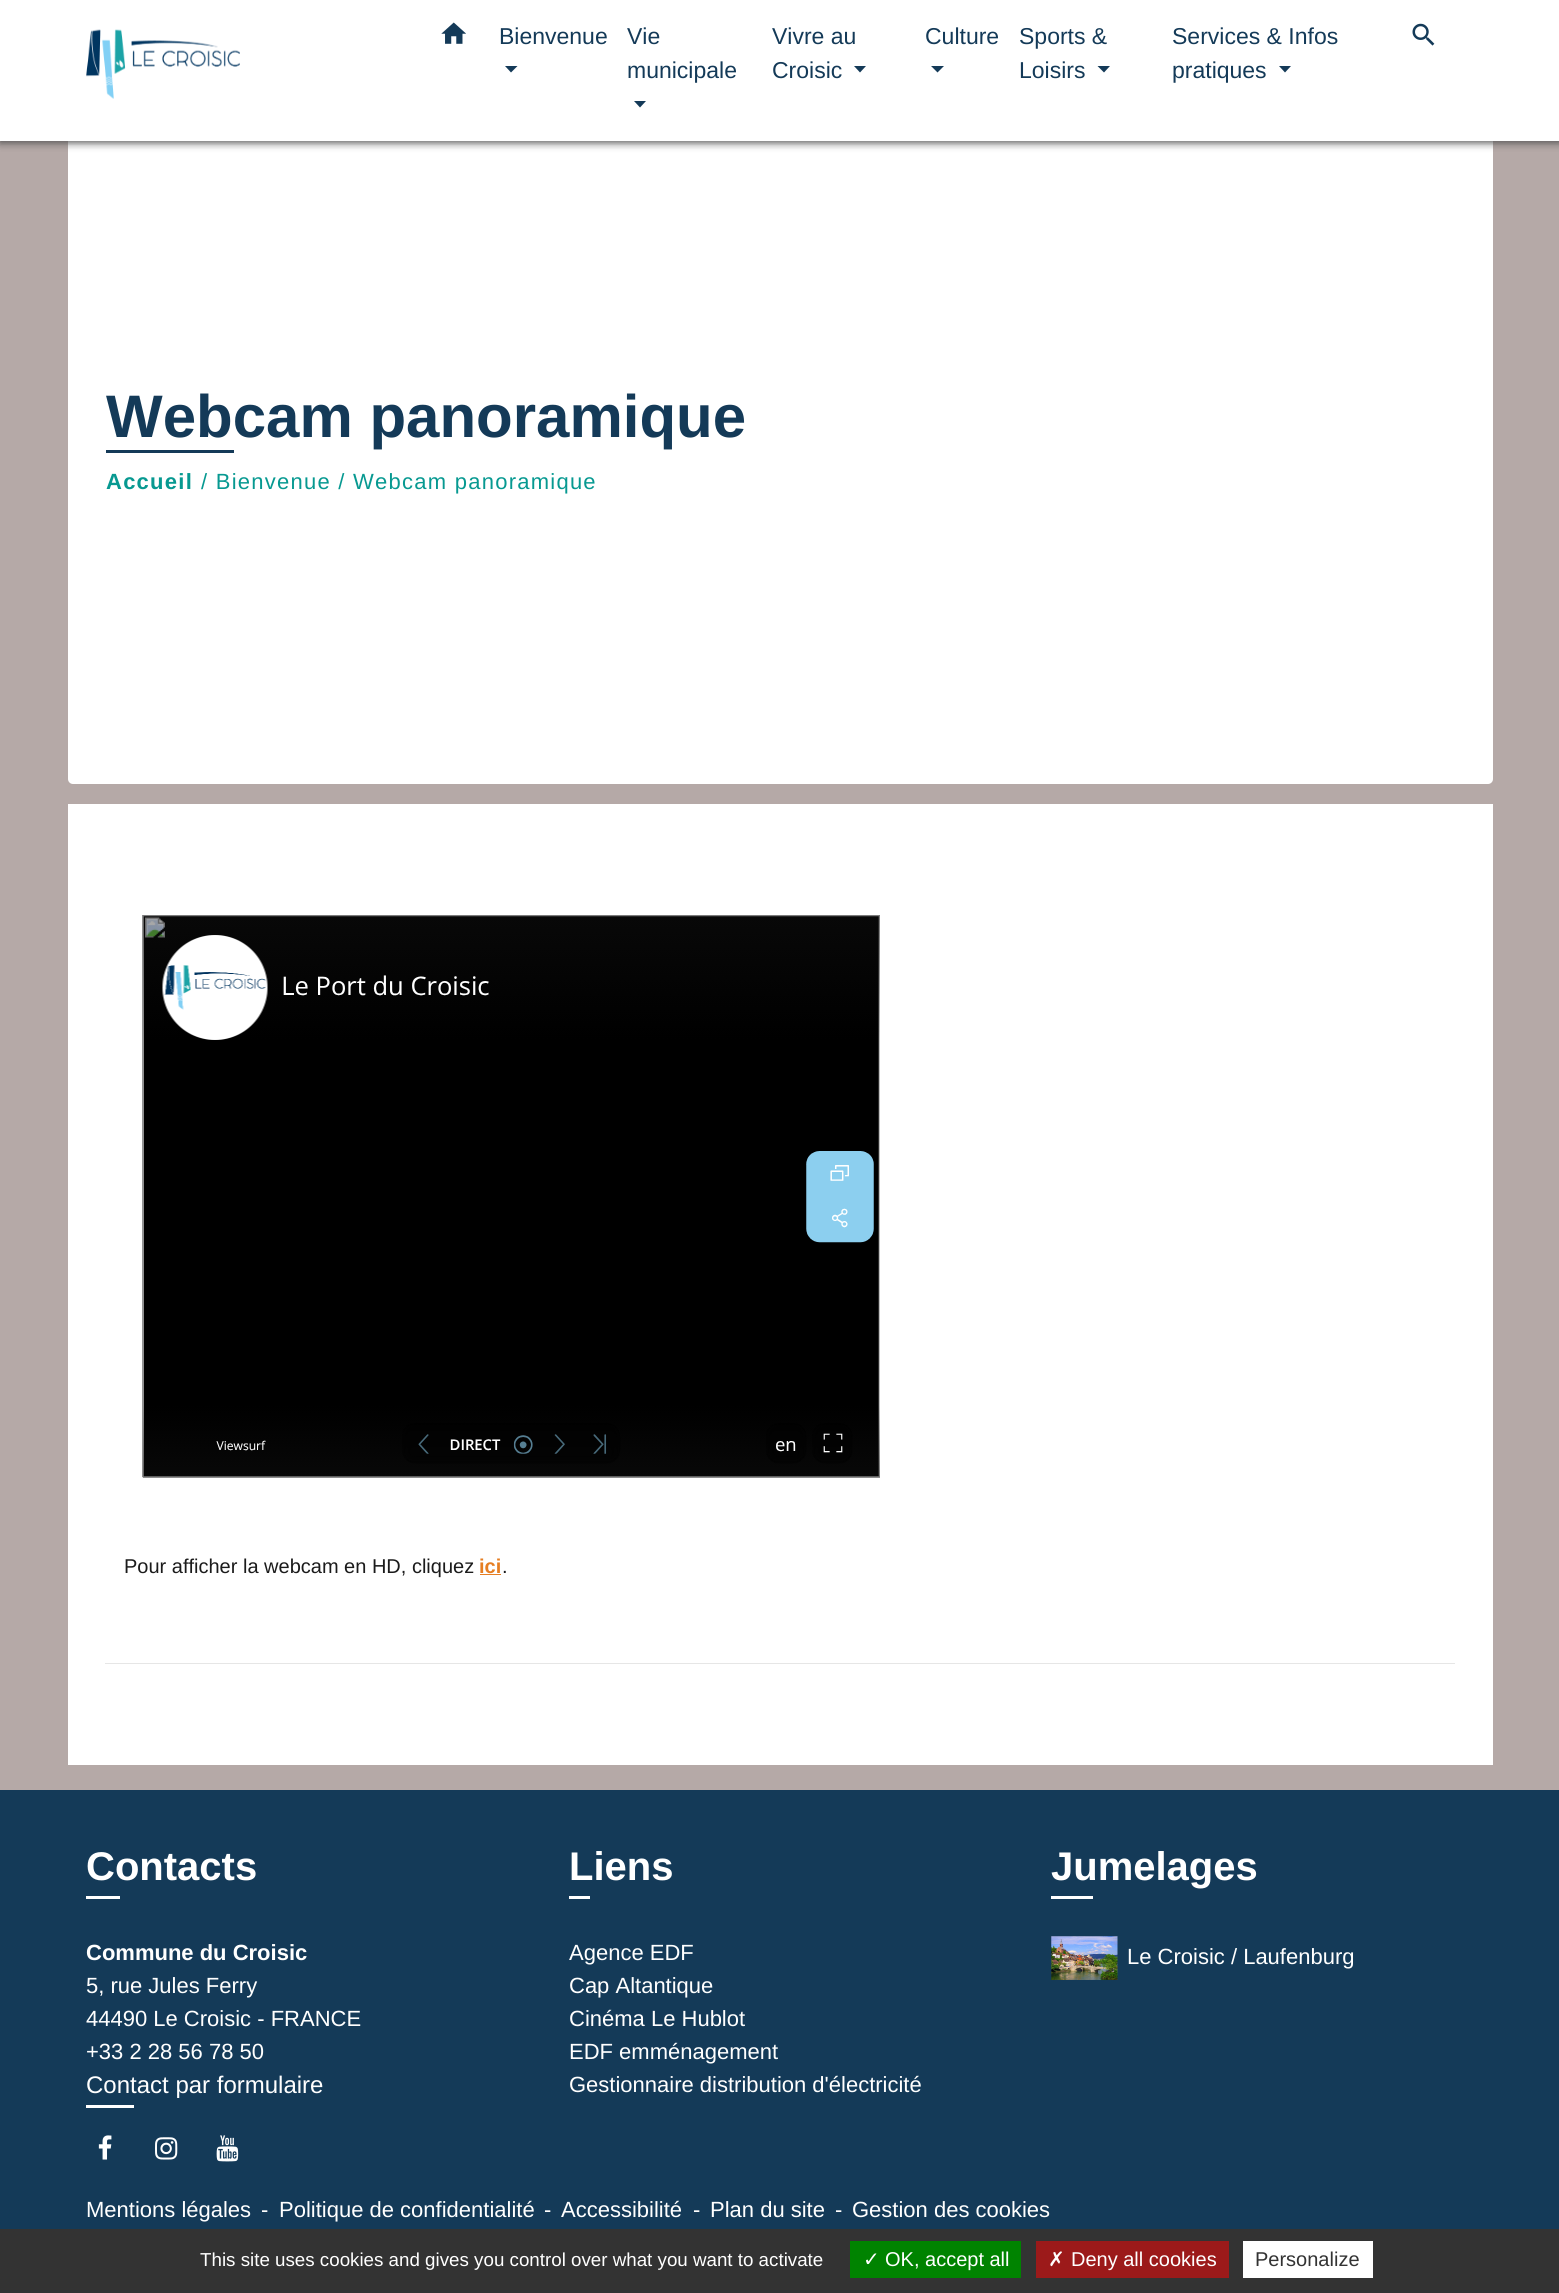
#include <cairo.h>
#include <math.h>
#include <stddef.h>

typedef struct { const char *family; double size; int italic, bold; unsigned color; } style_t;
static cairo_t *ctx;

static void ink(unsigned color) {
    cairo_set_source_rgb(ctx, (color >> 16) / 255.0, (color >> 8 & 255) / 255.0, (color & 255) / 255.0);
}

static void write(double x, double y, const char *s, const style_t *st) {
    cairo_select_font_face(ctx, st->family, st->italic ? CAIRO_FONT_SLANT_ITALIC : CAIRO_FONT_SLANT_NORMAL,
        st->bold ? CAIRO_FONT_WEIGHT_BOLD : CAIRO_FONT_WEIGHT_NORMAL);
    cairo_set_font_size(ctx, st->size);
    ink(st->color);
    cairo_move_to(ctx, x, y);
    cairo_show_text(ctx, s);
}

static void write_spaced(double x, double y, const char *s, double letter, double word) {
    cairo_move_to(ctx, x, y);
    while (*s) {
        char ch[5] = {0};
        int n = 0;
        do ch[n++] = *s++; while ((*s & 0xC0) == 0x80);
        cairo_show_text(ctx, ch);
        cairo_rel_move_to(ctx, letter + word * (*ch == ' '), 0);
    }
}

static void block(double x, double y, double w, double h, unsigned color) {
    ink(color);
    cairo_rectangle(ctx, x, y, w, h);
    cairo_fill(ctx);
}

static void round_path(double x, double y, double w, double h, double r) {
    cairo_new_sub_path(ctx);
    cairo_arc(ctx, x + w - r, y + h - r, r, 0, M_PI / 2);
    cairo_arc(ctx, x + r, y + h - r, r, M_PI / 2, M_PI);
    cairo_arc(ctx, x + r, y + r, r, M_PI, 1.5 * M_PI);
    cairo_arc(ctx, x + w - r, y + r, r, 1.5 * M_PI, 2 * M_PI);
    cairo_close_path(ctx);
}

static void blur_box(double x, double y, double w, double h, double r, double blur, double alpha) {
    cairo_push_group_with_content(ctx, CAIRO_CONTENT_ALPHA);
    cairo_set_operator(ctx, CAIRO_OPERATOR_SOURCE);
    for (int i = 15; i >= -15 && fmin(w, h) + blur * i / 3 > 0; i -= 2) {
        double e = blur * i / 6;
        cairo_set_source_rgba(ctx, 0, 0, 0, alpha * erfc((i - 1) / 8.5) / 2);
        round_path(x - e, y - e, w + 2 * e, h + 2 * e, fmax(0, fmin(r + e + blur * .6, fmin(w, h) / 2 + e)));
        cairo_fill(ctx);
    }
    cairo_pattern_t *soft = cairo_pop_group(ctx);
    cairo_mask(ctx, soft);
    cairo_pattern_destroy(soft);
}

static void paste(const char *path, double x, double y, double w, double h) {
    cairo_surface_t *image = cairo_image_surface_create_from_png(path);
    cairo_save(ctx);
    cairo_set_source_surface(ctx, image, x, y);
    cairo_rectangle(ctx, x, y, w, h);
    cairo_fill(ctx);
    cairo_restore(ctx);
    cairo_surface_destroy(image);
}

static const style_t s1 = {"Liberation Sans", 23, 0, 0, 0x143a58};
static const style_t s2 = {"Liberation Sans", 60, 0, 1, 0x143a58};
static const style_t s3 = {"Liberation Sans", 20, 0, 0, 0x1b1b1b};
static const style_t s4 = {"Liberation Sans", 20, 0, 1, 0xe67e22};
static const style_t s5 = {"Liberation Sans", 40, 0, 1, 0xffffff};
static const style_t s6 = {"Liberation Sans", 22, 0, 1, 0xffffff};
static const style_t s7 = {"Liberation Sans", 22, 0, 0, 0xffffff};
static const style_t s8 = {"Liberation Sans", 24, 0, 0, 0xffffff};
static const style_t s9 = {"Liberation Sans", 18.75, 0, 0, 0xffffff};
static const style_t s10 = {"DejaVu Sans", 20, 0, 0, 0xffffff};
static const style_t s11 = {"Liberation Sans", 20, 0, 0, 0xffffff};
static const style_t s12 = {"Liberation Sans", 20, 0, 0, 0x333333};

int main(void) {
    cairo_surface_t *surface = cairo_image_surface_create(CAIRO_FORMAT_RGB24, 1559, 2293);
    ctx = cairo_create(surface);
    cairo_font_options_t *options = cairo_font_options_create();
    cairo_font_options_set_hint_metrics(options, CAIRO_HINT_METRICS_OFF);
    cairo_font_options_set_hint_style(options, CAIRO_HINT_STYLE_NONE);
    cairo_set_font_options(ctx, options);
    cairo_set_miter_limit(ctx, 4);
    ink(0xb5a9a7);
    cairo_paint(ctx);
    ink(0xffffff);
    round_path(68, 95, 1425, 689, 5);
    cairo_fill(ctx);
    ink(0x535353);
    blur_box(0, 1, 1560, 142, 0, 4, 1);
    block(0, 0, 1559, 141, 0xffffff);
    paste("pic1.png", 86, 29, 154, 70);
    paste("pic2.png", 441, 22, 25, 22);
    write(499, 44, "Bienvenue", &s1);
    cairo_new_path(ctx);
    cairo_move_to(ctx, 505, 66);
    cairo_line_to(ctx, 517.5, 66);
    cairo_line_to(ctx, 511, 72.5);
    cairo_close_path(ctx);
    cairo_fill(ctx);
    write(627, 44, "Vie", &s1);
    write(627, 78, "municipale", &s1);
    cairo_new_path(ctx);
    cairo_move_to(ctx, 634, 101);
    cairo_line_to(ctx, 646, 101);
    cairo_line_to(ctx, 640, 107.5);
    cairo_close_path(ctx);
    cairo_fill(ctx);
    write(772, 44, "Vivre au", &s1);
    write(772, 78, "Croisic", &s1);
    cairo_new_path(ctx);
    cairo_move_to(ctx, 854, 66);
    cairo_line_to(ctx, 866, 66);
    cairo_line_to(ctx, 860, 72.5);
    cairo_close_path(ctx);
    cairo_fill(ctx);
    write(925, 44, "Culture", &s1);
    cairo_new_path(ctx);
    cairo_move_to(ctx, 931, 66);
    cairo_line_to(ctx, 944, 66);
    cairo_line_to(ctx, 937.5, 72.5);
    cairo_close_path(ctx);
    cairo_fill(ctx);
    write(1019, 44, "Sports &", &s1);
    write(1019, 78, "Loisirs", &s1);
    cairo_new_path(ctx);
    cairo_move_to(ctx, 1097.5, 66);
    cairo_line_to(ctx, 1110, 66);
    cairo_line_to(ctx, 1104, 72.5);
    cairo_close_path(ctx);
    cairo_fill(ctx);
    write(1172, 44, "Services & Infos", &s1);
    write(1172, 78, "pratiques", &s1);
    cairo_new_path(ctx);
    cairo_move_to(ctx, 1279, 66);
    cairo_line_to(ctx, 1291, 66);
    cairo_line_to(ctx, 1285, 72.5);
    cairo_close_path(ctx);
    cairo_fill(ctx);
    paste("pic3.png", 1412, 23, 23, 23);
    write(106, 437, "Webcam panoramique", &s2);
    block(106, 450, 128, 3, 0x143a58);
    cairo_set_font_size(ctx, 22);
    ink(0x079991);
    write_spaced(106, 489, "Accueil", 1.25, 0);
    cairo_select_font_face(ctx, "Liberation Sans", CAIRO_FONT_SLANT_NORMAL, CAIRO_FONT_WEIGHT_NORMAL);
    write_spaced(201, 489, "/ Bienvenue / Webcam panoramique", 1.25, 0);
    block(68, 804, 1425, 961, 0xffffff);
    paste("pic4.png", 142, 915, 738, 563);
    write(124, 1573, "Pour afficher la webcam en HD, cliquez", &s3);
    write(479, 1573, "ici", &s4);
    write(502, 1573, ".", &s3);
    block(480, 1574, 21, 1, 0xe67e22);
    block(105, 1663, 1350, 1, 0xe6e6e6);
    block(0, 1790, 1559, 439, 0x143a58);
    write(86, 1880, "Contacts", &s5);
    block(86, 1896, 34, 3, 0xffffff);
    write(86, 1960, "Commune du Croisic", &s6);
    write(86, 1993, "5, rue Jules Ferry", &s7);
    write(86, 2026, "44490 Le Croisic - FRANCE", &s7);
    write(86, 2059, "+33 2 28 56 78 50", &s7);
    write(86, 2093, "Contact par formulaire", &s8);
    block(86, 2105, 48, 3, 0xffffff);
    paste("pic5.png", 98, 2135, 14, 25);
    paste("pic6.png", 155, 2137, 23, 23);
    paste("pic7.png", 216, 2135, 23, 27);
    write(569, 1880, "Liens", &s5);
    block(569, 1896, 21, 3, 0xffffff);
    write(569, 1960, "Agence EDF", &s7);
    write(569, 1993, "Cap Altantique", &s7);
    write(569, 2026, "Cinéma Le Hublot", &s7);
    write(569, 2059, "EDF emménagement", &s7);
    write(569, 2092, "Gestionnaire distribution d'électricité", &s7);
    write(1051, 1880, "Jumelages", &s5);
    block(1051, 1896, 42, 3, 0xffffff);
    paste("pic8.png", 1051, 1936, 67, 44);
    write(1127, 1964, "Le Croisic / Laufenburg", &s7);
    write(86, 2217, "Mentions légales", &s7);
    write(261, 2217, "-", &s7);
    write(279, 2217, "Politique de confidentialité", &s7);
    write(544, 2217, "-", &s7);
    write(561, 2217, "Accessibilité", &s7);
    write(693, 2217, "-", &s7);
    write(710, 2217, "Plan du site", &s7);
    write(835, 2217, "-", &s7);
    write(852, 2217, "Gestion des cookies", &s7);
    block(0, 2229, 1559, 64, 0x333333);
    write(200, 2266, "This site uses cookies and gives you control over what you want to activate", &s9);
    block(850, 2241, 171, 37, 0x008300);
    write(863, 2266, "✓", &s10);
    write(885, 2266, "OK, accept all", &s11);
    block(1036, 2241, 193, 37, 0x9c1a1a);
    write(1048, 2266, "✗", &s10);
    write(1071, 2266, "Deny all cookies", &s11);
    block(1243, 2241, 130, 37, 0xffffff);
    write(1255, 2266, "Personalize", &s12);
    cairo_surface_write_to_png(surface, "screenshot.png");
    cairo_font_options_destroy(options);
    cairo_destroy(ctx);
    cairo_surface_destroy(surface);
    return 0;
}
